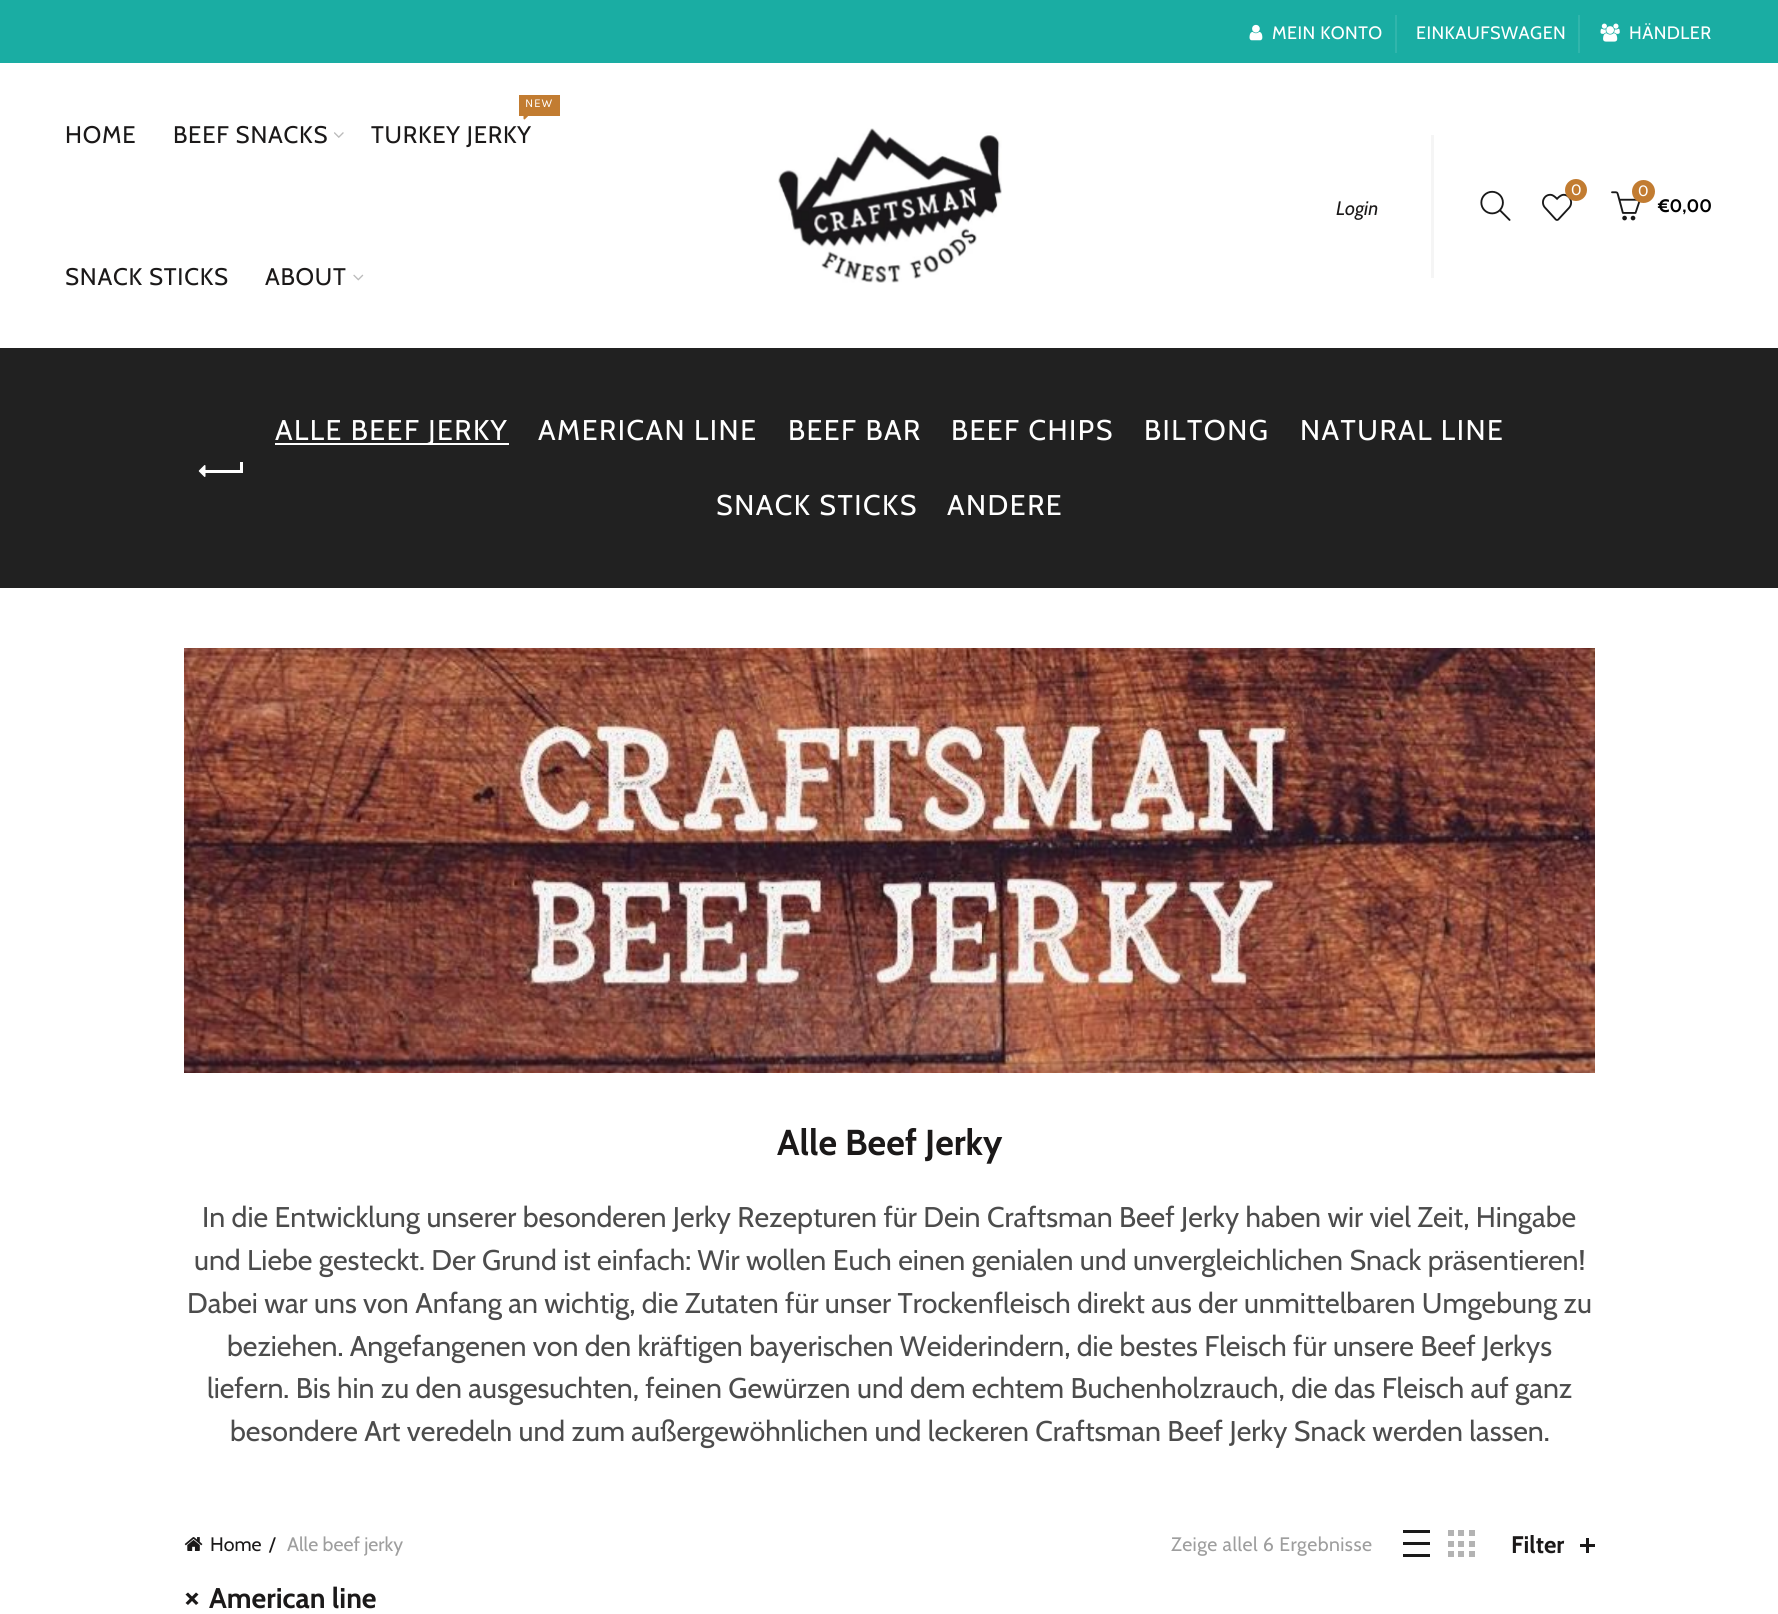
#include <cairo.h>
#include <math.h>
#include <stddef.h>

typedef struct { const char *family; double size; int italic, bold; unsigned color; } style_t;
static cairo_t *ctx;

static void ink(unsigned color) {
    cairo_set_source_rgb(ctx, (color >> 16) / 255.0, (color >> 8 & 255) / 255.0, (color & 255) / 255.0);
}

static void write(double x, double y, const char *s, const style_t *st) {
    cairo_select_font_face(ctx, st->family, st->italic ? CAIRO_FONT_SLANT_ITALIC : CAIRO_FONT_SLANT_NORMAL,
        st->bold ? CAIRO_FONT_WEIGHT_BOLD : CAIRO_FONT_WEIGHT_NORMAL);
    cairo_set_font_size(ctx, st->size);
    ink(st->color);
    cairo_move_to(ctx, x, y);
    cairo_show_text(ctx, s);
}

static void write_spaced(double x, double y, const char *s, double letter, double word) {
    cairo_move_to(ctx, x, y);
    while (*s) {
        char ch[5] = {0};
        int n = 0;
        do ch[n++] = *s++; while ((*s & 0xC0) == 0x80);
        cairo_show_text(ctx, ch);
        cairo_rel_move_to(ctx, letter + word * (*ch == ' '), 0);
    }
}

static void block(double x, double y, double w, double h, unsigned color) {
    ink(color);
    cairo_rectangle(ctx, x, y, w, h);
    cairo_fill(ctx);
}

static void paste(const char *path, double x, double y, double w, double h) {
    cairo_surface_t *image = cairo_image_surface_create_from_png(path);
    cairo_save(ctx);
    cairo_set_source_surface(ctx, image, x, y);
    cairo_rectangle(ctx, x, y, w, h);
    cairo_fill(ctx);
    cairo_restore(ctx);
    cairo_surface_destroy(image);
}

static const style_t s1 = {"Cabin", 19.5, 1, 0, 0x1b1919};
static const style_t s2 = {"Cabin", 15, 0, 0, 0xffffff};
static const style_t s3 = {"Cabin", 18, 0, 1, 0x000000};
static const style_t s4 = {"Cabin", 36, 0, 1, 0x1b1919};
static const style_t s5 = {"Cabin", 28.5, 0, 0, 0x4c4c4c};
static const style_t s6 = {"Cabin", 19.5, 0, 0, 0x1b1919};
static const style_t s7 = {"Cabin", 19.5, 0, 0, 0x9e9e9e};
static const style_t s8 = {"Cabin", 24, 0, 1, 0x1b1919};
static const style_t s9 = {"Cabin", 28.5, 0, 1, 0x1b1919};

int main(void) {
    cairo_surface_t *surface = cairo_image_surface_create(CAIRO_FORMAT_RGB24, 1778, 1614);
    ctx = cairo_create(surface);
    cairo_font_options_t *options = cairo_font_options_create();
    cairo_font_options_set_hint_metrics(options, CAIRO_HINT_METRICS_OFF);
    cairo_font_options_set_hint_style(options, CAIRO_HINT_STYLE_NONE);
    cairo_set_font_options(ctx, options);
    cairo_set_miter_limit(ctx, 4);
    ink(0xffffff);
    cairo_paint(ctx);
    block(0, 0, 1778, 63, 0x1aada3);
    paste("pic1.png", 1249, 24, 14, 17);
    cairo_select_font_face(ctx, "Cabin", CAIRO_FONT_SLANT_NORMAL, CAIRO_FONT_WEIGHT_NORMAL);
    cairo_set_font_size(ctx, 18);
    ink(0xffffff);
    write_spaced(1272, 39, "MEIN KONTO", 0.45, 0);
    block(1395, 15, 2, 38, 0x31b5ac);
    ink(0xffffff);
    write_spaced(1416, 39, "EINKAUFSWAGEN", 0.45, 0);
    block(1578, 15, 2, 38, 0x31b5ac);
    paste("pic2.png", 1600, 23, 20, 19);
    ink(0xffffff);
    write_spaced(1629, 39, "HÄNDLER", 0.45, 0);
    cairo_set_font_size(ctx, 24);
    ink(0x1b1919);
    write_spaced(65, 143, "HOME", 0.75, 0);
    write_spaced(173, 143, "BEEF SNACKS", 0.75, 0);
    paste("pic3.png", 334, 132, 10, 6);
    block(519, 95, 41, 21, 0xc27c31);
    cairo_select_font_face(ctx, "Karla", CAIRO_FONT_SLANT_NORMAL, CAIRO_FONT_WEIGHT_NORMAL);
    cairo_set_font_size(ctx, 12);
    ink(0xffffff);
    write_spaced(525, 107, "NEW", 0.75, 0);
    paste("pic4.png", 523, 116, 5, 4);
    cairo_select_font_face(ctx, "Cabin", CAIRO_FONT_SLANT_NORMAL, CAIRO_FONT_WEIGHT_NORMAL);
    cairo_set_font_size(ctx, 24);
    ink(0x1b1919);
    write_spaced(371, 143, "TURKEY JERKY", 0.75, 0);
    write_spaced(65, 285, "SNACK STICKS", 0.75, 0);
    write_spaced(265, 285, "ABOUT", 0.75, 0);
    paste("pic5.png", 353, 274, 11, 7);
    paste("pic6.png", 778, 128, 224, 155);
    block(1431, 135, 3, 143, 0xf5f5f5);
    write(1336, 215, "Login", &s1);
    paste("pic7.png", 1480, 190, 31, 31);
    paste("pic8.png", 1542, 193, 31, 28);
    ink(0xc27c31);
    cairo_arc(ctx, 1576, 190, 11, 0, 2 * M_PI);
    cairo_fill(ctx);
    write(1571, 195, "0", &s2);
    paste("pic9.png", 1611, 191, 30, 30);
    ink(0xc27c31);
    cairo_arc(ctx, 1643.5, 191.5, 11.5, 0, 2 * M_PI);
    cairo_fill(ctx);
    write(1638, 196, "0", &s2);
    write(1658, 212, "€0,00", &s3);
    block(0, 348, 1778, 240, 0x212121);
    block(204, 470, 38, 3, 0xffffff);
    paste("pic10.png", 198, 465, 8, 12);
    block(240, 462, 3, 11, 0xffffff);
    cairo_select_font_face(ctx, "Cabin", CAIRO_FONT_SLANT_NORMAL, CAIRO_FONT_WEIGHT_NORMAL);
    cairo_set_font_size(ctx, 28.5);
    write_spaced(275, 440, "ALLE BEEF JERKY", 1.5, 0);
    block(275, 443, 234, 2, 0xffffff);
    write_spaced(538, 440, "AMERICAN LINE", 1.5, 0);
    write_spaced(788, 440, "BEEF BAR", 1.5, 0);
    write_spaced(951, 440, "BEEF CHIPS", 1.5, 0);
    write_spaced(1144, 440, "BILTONG", 1.5, 0);
    write_spaced(1300, 440, "NATURAL LINE", 1.5, 0);
    write_spaced(716, 515, "SNACK STICKS", 1.5, 0);
    write_spaced(947, 515, "ANDERE", 1.5, 0);
    paste("pic11.png", 184, 648, 1411, 425);
    write(777, 1155, "Alle Beef Jerky", &s4);
    write(202, 1227, "In die Entwicklung unserer besonderen Jerky Rezepturen für Dein Craftsman Beef Jerky haben wir viel Zeit, Hingabe", &s5);
    write(194, 1270, "und Liebe gesteckt. Der Grund ist einfach: Wir wollen Euch einen genialen und unvergleichlichen Snack präsentieren!", &s5);
    write(187, 1313, "Dabei war uns von Anfang an wichtig, die Zutaten für unser Trockenfleisch direkt aus der unmittelbaren Umgebung zu", &s5);
    write(227, 1356, "beziehen. Angefangenen von den kräftigen bayerischen Weiderindern, die bestes Fleisch für unsere Beef Jerkys", &s5);
    write(207, 1398, "liefern. Bis hin zu den ausgesuchten, feinen Gewürzen und dem echtem Buchenholzrauch, die das Fleisch auf ganz", &s5);
    write(230, 1441, "besondere Art veredeln und zum außergewöhnlichen und leckeren Craftsman Beef Jerky Snack werden lassen.", &s5);
    paste("pic12.png", 184, 1537, 19, 14);
    write(210, 1551, "Home", &s6);
    write(269, 1551, "/", &s6);
    write(287, 1551, "Alle beef jerky", &s7);
    write_spaced(1171, 1551, "Zeige allel 6 Ergebnisse", 0.45, 0);
    block(1403, 1530, 27, 3, 0x1a1a1a);
    block(1403, 1554, 27, 3, 0x1a1a1a);
    block(1403, 1542, 27, 3, 0x1a1a1a);
    paste("pic13.png", 1448, 1530, 27, 27);
    write(1511, 1553, "Filter", &s8);
    block(1586, 1538, 3, 15, 0x1b1919);
    block(1580, 1544, 15, 3, 0x1b1919);
    cairo_new_path(ctx);
    cairo_move_to(ctx, 188, 1592.5);
    cairo_line_to(ctx, 198.5, 1603);
    cairo_line_to(ctx, 196, 1605);
    cairo_line_to(ctx, 185.5, 1594.5);
    cairo_close_path(ctx);
    cairo_fill(ctx);
    write(209, 1608, "American line", &s9);
    cairo_new_path(ctx);
    cairo_move_to(ctx, 185.5, 1603);
    cairo_line_to(ctx, 196, 1592.5);
    cairo_line_to(ctx, 198.5, 1594.5);
    cairo_line_to(ctx, 188, 1605);
    cairo_close_path(ctx);
    cairo_fill(ctx);
    cairo_surface_write_to_png(surface, "screenshot.png");
    cairo_font_options_destroy(options);
    cairo_destroy(ctx);
    cairo_surface_destroy(surface);
    return 0;
}
